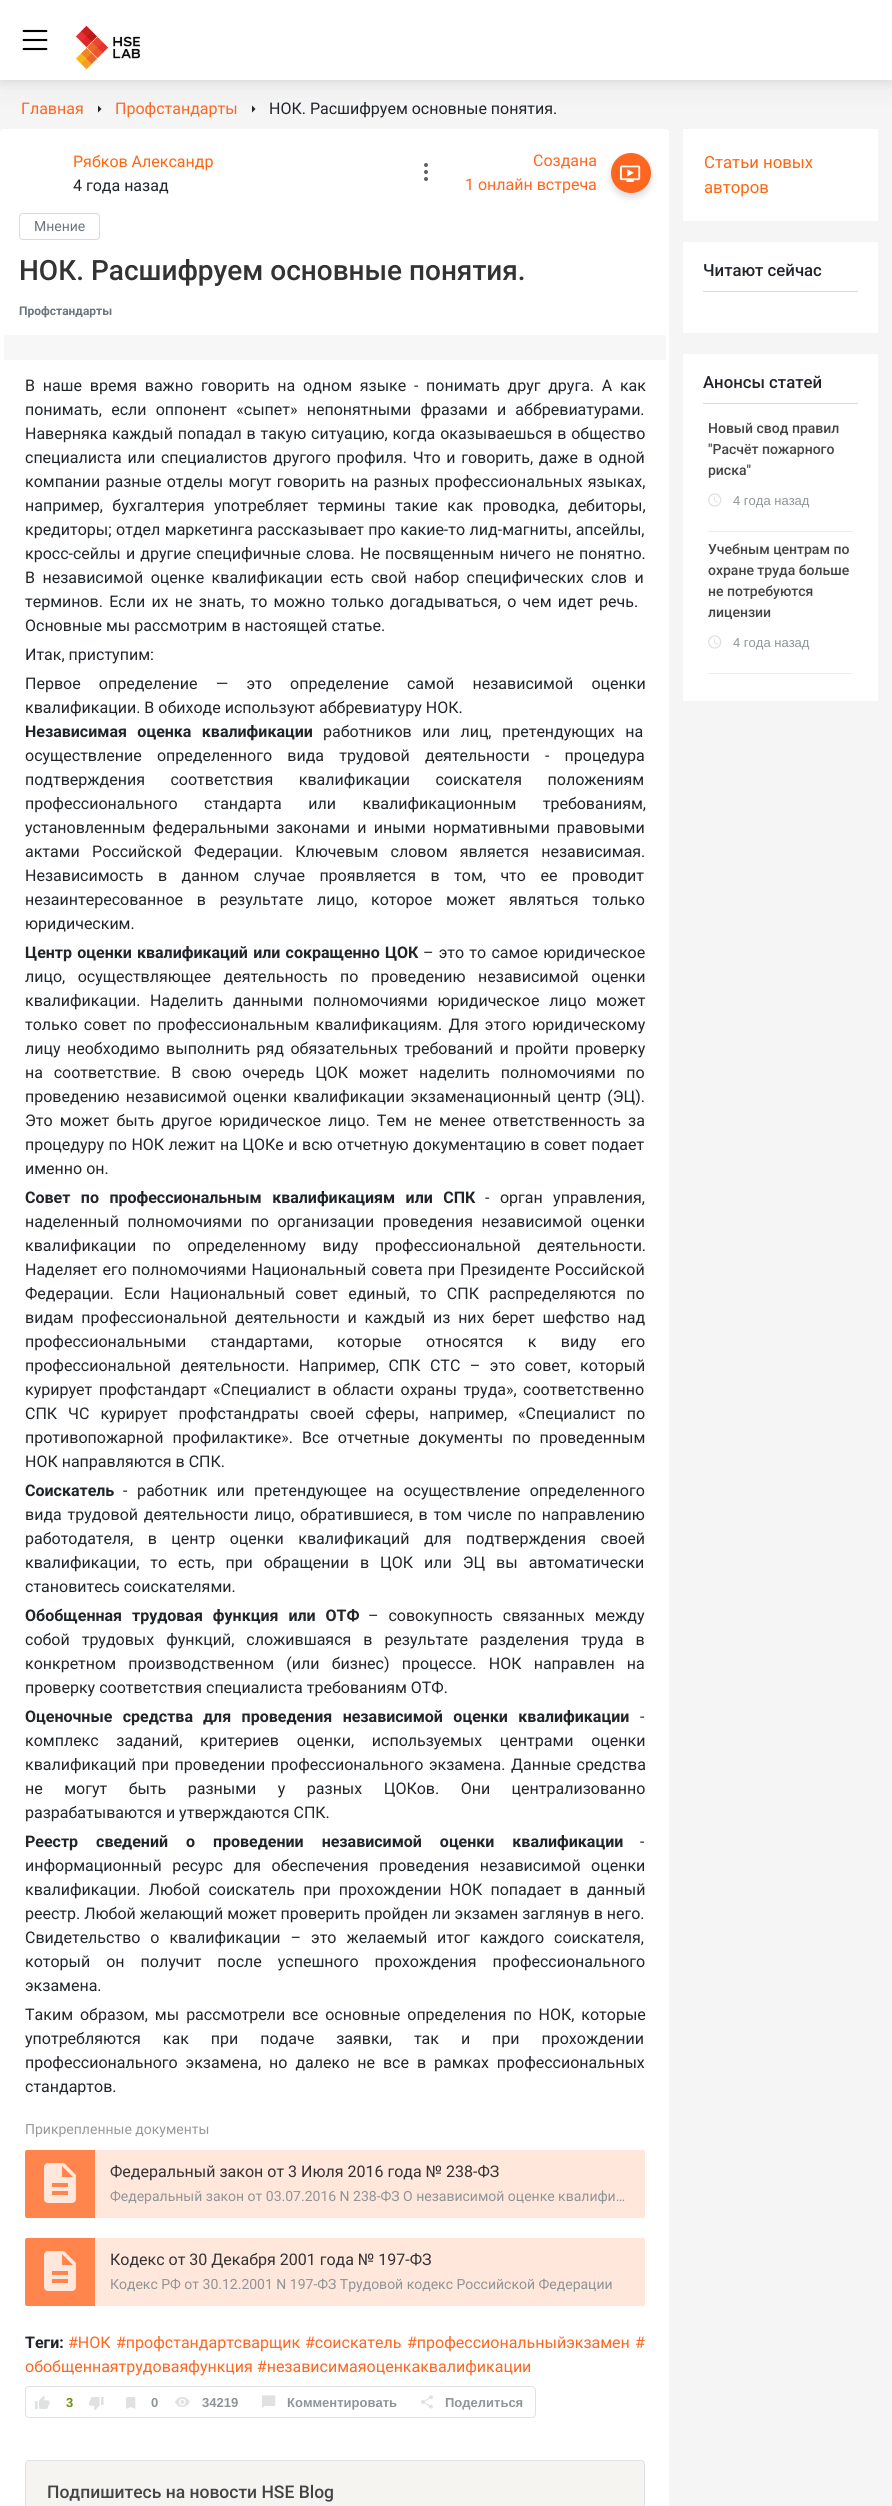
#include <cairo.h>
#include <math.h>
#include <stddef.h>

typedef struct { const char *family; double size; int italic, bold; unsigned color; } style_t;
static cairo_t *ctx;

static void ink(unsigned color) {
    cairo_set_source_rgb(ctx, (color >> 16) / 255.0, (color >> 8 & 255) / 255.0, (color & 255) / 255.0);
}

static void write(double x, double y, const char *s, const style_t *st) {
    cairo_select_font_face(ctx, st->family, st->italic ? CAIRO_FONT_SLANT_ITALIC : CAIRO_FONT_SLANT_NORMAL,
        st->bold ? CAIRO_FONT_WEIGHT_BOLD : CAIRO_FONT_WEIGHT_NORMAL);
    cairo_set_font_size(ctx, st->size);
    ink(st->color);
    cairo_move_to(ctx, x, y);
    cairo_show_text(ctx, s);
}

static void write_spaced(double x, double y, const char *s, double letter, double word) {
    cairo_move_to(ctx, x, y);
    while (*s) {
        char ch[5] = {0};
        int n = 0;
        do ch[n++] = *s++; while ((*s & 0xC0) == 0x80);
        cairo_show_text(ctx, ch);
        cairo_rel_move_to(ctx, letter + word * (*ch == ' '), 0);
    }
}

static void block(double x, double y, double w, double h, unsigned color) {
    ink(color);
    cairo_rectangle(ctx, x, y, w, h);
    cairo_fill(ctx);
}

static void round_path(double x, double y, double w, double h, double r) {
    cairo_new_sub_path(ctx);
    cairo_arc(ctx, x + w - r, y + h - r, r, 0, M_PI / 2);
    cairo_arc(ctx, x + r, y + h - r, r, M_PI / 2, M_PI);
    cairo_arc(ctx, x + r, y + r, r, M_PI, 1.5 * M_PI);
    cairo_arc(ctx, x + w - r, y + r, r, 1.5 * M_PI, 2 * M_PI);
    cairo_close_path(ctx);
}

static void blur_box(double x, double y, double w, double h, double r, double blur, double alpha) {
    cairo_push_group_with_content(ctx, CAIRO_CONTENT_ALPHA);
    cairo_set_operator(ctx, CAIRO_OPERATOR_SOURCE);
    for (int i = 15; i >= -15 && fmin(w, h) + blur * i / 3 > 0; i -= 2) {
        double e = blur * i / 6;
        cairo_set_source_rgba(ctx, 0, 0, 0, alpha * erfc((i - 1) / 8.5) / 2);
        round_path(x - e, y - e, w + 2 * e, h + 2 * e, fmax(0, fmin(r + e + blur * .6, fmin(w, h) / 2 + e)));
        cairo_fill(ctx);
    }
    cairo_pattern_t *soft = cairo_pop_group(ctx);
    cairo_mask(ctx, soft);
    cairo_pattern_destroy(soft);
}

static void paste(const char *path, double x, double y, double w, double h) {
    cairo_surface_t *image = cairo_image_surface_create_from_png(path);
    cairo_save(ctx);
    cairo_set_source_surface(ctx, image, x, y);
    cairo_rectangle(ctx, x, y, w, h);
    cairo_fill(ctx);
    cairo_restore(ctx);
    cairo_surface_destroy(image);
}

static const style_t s1 = {"Roboto", 16, 0, 0, 0xff6620};
static const style_t s2 = {"Roboto", 16, 0, 0, 0x212529};
static const style_t s3 = {"Roboto", 16, 0, 0, 0xff6610};
static const style_t s4 = {"Roboto", 14, 0, 0, 0x6c757d};
static const style_t s5 = {"Roboto Medium", 28, 0, 0, 0x333333};
static const style_t s6 = {"Roboto", 12, 0, 1, 0x6c757d};
static const style_t s7 = {"Roboto", 16, 0, 1, 0x212529};
static const style_t s8 = {"Roboto", 14, 0, 0, 0x999999};
static const style_t s9 = {"Roboto", 16, 0, 0, 0x333333};
static const style_t s10 = {"Roboto", 14, 0, 0, 0x8e9597};
static const style_t s11 = {"Liberation Sans", 13, 0, 1, 0x6c9007};
static const style_t s12 = {"Liberation Sans", 13, 0, 1, 0x8e9597};
static const style_t s13 = {"Roboto Medium", 17.5, 0, 0, 0x444444};
static const style_t s14 = {"Roboto", 16.75, 0, 0, 0xff6610};
static const style_t s15 = {"Roboto Medium", 16.75, 0, 0, 0x212529};
static const style_t s16 = {"Roboto Medium", 14, 0, 0, 0x444444};
static const style_t s17 = {"Liberation Sans", 13, 0, 0, 0x8e9597};

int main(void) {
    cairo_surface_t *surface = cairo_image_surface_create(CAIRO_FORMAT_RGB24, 892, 2506);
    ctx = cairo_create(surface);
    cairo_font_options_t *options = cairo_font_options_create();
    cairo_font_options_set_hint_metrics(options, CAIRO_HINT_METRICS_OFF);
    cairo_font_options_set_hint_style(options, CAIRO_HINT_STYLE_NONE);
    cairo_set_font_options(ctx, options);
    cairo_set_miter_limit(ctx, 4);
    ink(0xf5f5f6);
    cairo_paint(ctx);
    ink(0x000000);
    blur_box(0, 0, 892, 80, 0, 5, 0.1);
    ink(0x212529);
    cairo_new_path(ctx);
    cairo_move_to(ctx, 98, 112.5);
    cairo_line_to(ctx, 98, 105.5);
    cairo_line_to(ctx, 101.5, 109);
    cairo_close_path(ctx);
    cairo_fill(ctx);
    cairo_new_path(ctx);
    cairo_move_to(ctx, 252, 112.5);
    cairo_line_to(ctx, 252, 105.5);
    cairo_line_to(ctx, 255.5, 109);
    cairo_close_path(ctx);
    cairo_fill(ctx);
    ink(0x000000);
    blur_box(0, 8, 892, 80, 0, 12.5, 0.05);
    block(0, 0, 892, 80, 0xffffff);
    paste("pic1.png", 22, 29, 26, 22);
    paste("pic2.png", 75, 25, 65, 45);
    write(21, 114, "Главная", &s1);
    write(115, 114, "Профстандарты", &s1);
    write(269, 114, "НОК. Расшифруем основные понятия.", &s2);
    ink(0xffffff);
    round_path(0, 129, 669, 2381, 4);
    cairo_fill(ctx);
    write(73, 167, "Рябков Александр", &s3);
    write(73, 191, "4 года назад", &s2);
    ink(0x616161);
    cairo_new_path(ctx);
    cairo_arc(ctx, 426, 172, 2, 0, 2 * M_PI);
    cairo_fill(ctx);
    cairo_arc(ctx, 426, 165, 2, 0, 2 * M_PI);
    cairo_fill(ctx);
    cairo_arc(ctx, 426, 179, 2, 0, 2 * M_PI);
    cairo_fill(ctx);
    write(533, 166, "Создана", &s1);
    write(465, 190, "1 онлайн встреча", &s1);
    ink(0x000000);
    blur_box(611, 157, 40, 40, 20, 3.5, 0.15);
    ink(0xff6620);
    cairo_arc(ctx, 631, 173, 20, 0, 2 * M_PI);
    cairo_fill(ctx);
    paste("pic3.png", 620, 165, 21, 17);
    round_path(19.5, 213.5, 80, 26, 3.5);
    ink(0xd8d9db);
    cairo_set_line_width(ctx, 1);
    cairo_stroke(ctx);
    write(34, 231, "Мнение", &s4);
    write(19, 280, "НОК. Расшифруем основные понятия.", &s5);
    write(19, 315, "Профстандарты", &s6);
    ink(0xf7f7f7);
    cairo_new_path(ctx);
    cairo_move_to(ctx, 6.5, 335);
    cairo_line_to(ctx, 663.5, 335);
    cairo_curve_to(ctx, 665, 335, 666, 336, 666, 337.5);
    cairo_line_to(ctx, 666, 360);
    cairo_line_to(ctx, 4, 360);
    cairo_line_to(ctx, 4, 337.5);
    cairo_curve_to(ctx, 4, 336, 5, 335, 6.5, 335);
    cairo_close_path(ctx);
    cairo_fill(ctx);
    cairo_select_font_face(ctx, "Roboto", CAIRO_FONT_SLANT_NORMAL, CAIRO_FONT_WEIGHT_NORMAL);
    cairo_set_font_size(ctx, 16);
    ink(0x212529);
    write_spaced(25, 391, "В наше время важно говорить на одном языке - понимать друг друга. А как", 0, 3.75);
    write_spaced(25, 415, "понимать, если оппонент «сыпет» непонятными фразами и аббревиатурами.", 0, 5.25);
    write_spaced(25, 439, "Наверняка каждый попадал в такую ситуацию, когда оказываешься в общество", 0, 0.9);
    write_spaced(25, 463, "специалиста или специалистов другого профиля. Что и говорить, даже в одной", 0, 1.75);
    write_spaced(25, 487, "компании разные отделы могут говорить на разных профессиональных языках,", 0, 1.25);
    write_spaced(25, 511, "например, бухгалтерия употребляет термины такие как проводка, дебиторы,", 0, 5.5);
    write_spaced(25, 535, "кредиторы; отдел маркетинга рассказывает про какие-то лид-магниты, апсейлы,", 0, 0.5);
    write_spaced(25, 559, "кросс-сейлы и другие специфичные слова. Не посвященным ничего не понятно.", 0, 1.25);
    write_spaced(25, 583, "В независимой оценке квалификации есть свой набор специфических слов и", 0, 3.5);
    write_spaced(25, 607, "терминов. Если их не знать, то можно только догадываться, о чем идет речь.", 0, 2.25);
    write(25, 631, "Основные мы рассмотрим в настоящей статье.", &s2);
    write(25, 660, "Итак, приступим:", &s2);
    write_spaced(25, 689, "Первое определение — это определение самой независимой оценки", 0, 14.25);
    write(25, 713, "квалификации. В обиходе используют аббревиатуру НОК.", &s2);
    cairo_select_font_face(ctx, "Roboto", CAIRO_FONT_SLANT_NORMAL, CAIRO_FONT_WEIGHT_BOLD);
    write_spaced(25, 737, "Независимая оценка квалификации", 0, 6.5);
    cairo_select_font_face(ctx, "Roboto", CAIRO_FONT_SLANT_NORMAL, CAIRO_FONT_WEIGHT_NORMAL);
    write_spaced(323, 737, "работников или лиц, претендующих на", 0, 6.5);
    write_spaced(25, 761, "осуществление определенного вида трудовой деятельности - процедура", 0, 11.25);
    write_spaced(25, 785, "подтверждения соответствия квалификации соискателя положениям", 0, 21.5);
    write_spaced(25, 809, "профессионального стандарта или квалификационным требованиям,", 0, 22.5);
    write_spaced(25, 833, "установленным федеральными законами и иными нормативными правовыми", 0, 3.25);
    write_spaced(25, 857, "актами Российской Федерации. Ключевым словом является независимая.", 0, 8.25);
    write_spaced(25, 881, "Независимость в данном случае проявляется в том, что ее проводит", 0, 10.5);
    write_spaced(25, 905, "незаинтересованное в результате лицо, которое может являться только", 0, 9.75);
    write(25, 929, "юридическим.", &s2);
    cairo_select_font_face(ctx, "Roboto", CAIRO_FONT_SLANT_NORMAL, CAIRO_FONT_WEIGHT_BOLD);
    write_spaced(25, 958, "Центр оценки квалификаций или сокращенно ЦОК", 0, 1.25);
    cairo_select_font_face(ctx, "Roboto", CAIRO_FONT_SLANT_NORMAL, CAIRO_FONT_WEIGHT_NORMAL);
    write_spaced(423, 958, "– это то самое юридическое", 0, 1.25);
    write_spaced(25, 982, "лицо, осуществляющее деятельность по проведению независимой оценки", 0, 8.5);
    write_spaced(25, 1006, "квалификации. Наделить данными полномочиями юридическое лицо может", 0, 5.75);
    write_spaced(25, 1030, "только совет по профессиональным квалификациям. Для этого юридическому", 0, 2.25);
    write_spaced(25, 1054, "лицу необходимо выполнить ряд обязательных требований и пройти проверку", 0, 2.5);
    write_spaced(25, 1078, "на соответствие. В свою очередь ЦОК может наделить полномочиями по", 0, 6.75);
    write_spaced(25, 1102, "проведению независимой оценки квалификации экзаменационный центр (ЭЦ).", 0, 2.25);
    write_spaced(25, 1126, "Это может быть другое юридическое лицо. Тем не менее ответственность за", 0, 3.25);
    write_spaced(25, 1150, "процедуру по НОК лежит на ЦОКе и всю отчетную документацию в совет подает", 0, 0.5);
    write(25, 1174, "именно он.", &s2);
    cairo_select_font_face(ctx, "Roboto", CAIRO_FONT_SLANT_NORMAL, CAIRO_FONT_WEIGHT_BOLD);
    write_spaced(25, 1203, "Совет по профессиональным квалификациям или СПК", 0, 6.5);
    cairo_select_font_face(ctx, "Roboto", CAIRO_FONT_SLANT_NORMAL, CAIRO_FONT_WEIGHT_NORMAL);
    write_spaced(485, 1203, "- орган управления,", 0, 6.5);
    write_spaced(25, 1227, "наделенный полномочиями по организации проведения независимой оценки", 0, 4.5);
    write_spaced(25, 1251, "квалификации по определенному виду профессиональной деятельности.", 0, 12.5);
    write_spaced(25, 1275, "Наделяет его полномочиями Национальный совета при Президенте Российской", 0, 1);
    write_spaced(25, 1299, "Федерации. Если Национальный совет единый, то СПК распределяются по", 0, 6.25);
    write_spaced(25, 1323, "видам профессиональной деятельности и каждый из них берет шефство над", 0, 3.75);
    write_spaced(25, 1347, "профессиональными стандартами, которые относятся к виду его", 0, 20.5);
    write_spaced(25, 1371, "профессиональной деятельности. Например, СПК СТС – это совет, который", 0, 5.5);
    write_spaced(25, 1395, "курирует профстандарт «Специалист в области охраны труда», соответственно", 0, 2.5);
    write_spaced(25, 1419, "СПК ЧС курирует профстандраты своей сферы, например, «Специалист по", 0, 7);
    write_spaced(25, 1443, "противопожарной профилактике». Все отчетные документы по проведенным", 0, 5);
    write(25, 1467, "НОК направляются в СПК.", &s2);
    write(25, 1496, "Соискатель", &s7);
    cairo_select_font_face(ctx, "Roboto", CAIRO_FONT_SLANT_NORMAL, CAIRO_FONT_WEIGHT_NORMAL);
    write_spaced(123, 1496, "- работник или претендующее на осуществление определенного", 0, 5.5);
    write_spaced(25, 1520, "вида трудовой деятельности лицо, обратившиеся, в том числе по направлению", 0, 1.75);
    write_spaced(25, 1544, "работодателя, в центр оценки квалификаций для подтверждения своей", 0, 10.5);
    write_spaced(25, 1568, "квалификации, то есть, при обращении в ЦОК или ЭЦ вы автоматически", 0, 7);
    write(25, 1592, "становитесь соискателями.", &s2);
    cairo_select_font_face(ctx, "Roboto", CAIRO_FONT_SLANT_NORMAL, CAIRO_FONT_WEIGHT_BOLD);
    write_spaced(25, 1621, "Обобщенная трудовая функция или ОТФ", 0, 6);
    cairo_select_font_face(ctx, "Roboto", CAIRO_FONT_SLANT_NORMAL, CAIRO_FONT_WEIGHT_NORMAL);
    write_spaced(368, 1621, "– совокупность связанных между", 0, 6);
    write_spaced(25, 1645, "собой трудовых функций, сложившаяся в результате разделения труда в", 0, 8);
    write_spaced(25, 1669, "конкретном производственном (или бизнес) процессе. НОК направлен на", 0, 8.25);
    write(25, 1693, "проверку соответствия специалиста требованиям ОТФ.", &s2);
    cairo_select_font_face(ctx, "Roboto", CAIRO_FONT_SLANT_NORMAL, CAIRO_FONT_WEIGHT_BOLD);
    write_spaced(25, 1722, "Оценочные средства", 0, 6.5);
    write_spaced(203, 1722, "для проведения независимой оценки квалификации", 0, 6.5);
    write(640, 1722, "-", &s2);
    write_spaced(25, 1746, "комплекс заданий, критериев оценки, используемых центрами оценки", 0, 13.75);
    write_spaced(25, 1770, "квалификаций при проведении профессионального экзамена. Данные средства", 0, 1.5);
    write_spaced(25, 1794, "не могут быть разными у разных ЦОКов. Они централизованно", 0, 17.5);
    write(25, 1818, "разрабатываются и утверждаются СПК.", &s2);
    cairo_select_font_face(ctx, "Roboto", CAIRO_FONT_SLANT_NORMAL, CAIRO_FONT_WEIGHT_BOLD);
    write_spaced(25, 1847, "Реестр сведений о проведении независимой оценки квалификации", 0, 14);
    write(640, 1847, "-", &s2);
    write_spaced(25, 1871, "информационный ресурс для обеспечения проведения независимой оценки", 0, 6.5);
    write_spaced(25, 1895, "квалификации. Любой соискатель при прохождении НОК попадает в данный", 0, 4.25);
    write(25, 1919, "реестр. Любой желающий может проверить пройден ли экзамен заглянув в него.", &s2);
    write_spaced(25, 1943, "Свидетельство о квалификации – это желаемый итог каждого соискателя,", 0, 6);
    write_spaced(25, 1967, "который он получит после успешного прохождения профессионального", 0, 12);
    write(25, 1991, "экзамена.", &s2);
    write_spaced(25, 2020, "Таким образом, мы рассмотрели все основные определения по НОК, которые", 0, 3);
    write_spaced(25, 2044, "употребляются как при подаче заявки, так и при прохождении", 0, 18);
    write_spaced(25, 2068, "профессионального экзамена, но далеко не все в рамках профессиональных", 0, 4);
    write(25, 2092, "стандартов.", &s2);
    write(25, 2134, "Прикрепленные документы", &s8);
    ink(0xff854d);
    round_path(25, 2150, 620, 68, 2);
    cairo_fill(ctx);
    paste("pic4.png", 44, 2163, 32, 40);
    cairo_set_source_rgba(ctx, 1, 1, 1, 0.8);
    cairo_rectangle(ctx, 95, 2150, 550, 68);
    cairo_fill(ctx);
    write(110, 2177, "Федеральный закон от 3 Июля 2016 года № 238-ФЗ", &s9);
    write(110, 2201, "Федеральный закон от 03.07.2016 N 238-ФЗ О независимой оценке квалифи…", &s10);
    ink(0xff854d);
    round_path(25, 2238, 620, 68, 2);
    cairo_fill(ctx);
    paste("pic4.png", 44, 2251, 32, 40);
    cairo_set_source_rgba(ctx, 1, 1, 1, 0.8);
    cairo_rectangle(ctx, 95, 2238, 550, 68);
    cairo_fill(ctx);
    write(110, 2265, "Кодекс от 30 Декабря 2001 года № 197-ФЗ", &s9);
    write(110, 2289, "Кодекс РФ от 30.12.2001 N 197-ФЗ Трудовой кодекс Российской Федерации", &s10);
    write(25, 2348, "Теги:", &s7);
    write(68, 2348, "#НОК", &s1);
    write(116, 2348, "#профстандартсварщик", &s1);
    write(305, 2348, "#соискатель", &s1);
    write(407, 2348, "#профессиональныйэкзамен", &s1);
    write(635, 2348, "#", &s1);
    write(25, 2372, "обобщеннаятрудоваяфункция #независимаяоценкаквалификации", &s1);
    round_path(25.5, 2386.5, 510, 31, 3.5);
    ink(0xe0e1e2);
    cairo_stroke(ctx);
    paste("pic5.png", 35, 2396, 15, 13);
    write(66, 2407, "3", &s11);
    paste("pic6.png", 89, 2397, 15, 13);
    paste("pic7.png", 126, 2397, 10, 12);
    write(151, 2407, "0", &s12);
    paste("pic8.png", 175, 2397, 15, 10);
    write(202, 2407, "34219", &s12);
    paste("pic9.png", 262, 2395, 14, 14);
    write(287, 2407, "Комментировать", &s12);
    paste("pic10.png", 421, 2395, 12, 14);
    write(445, 2407, "Поделиться", &s12);
    ink(0xf5f4f1);
    round_path(25.5, 2460.5, 619, 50, 3.5);
    cairo_fill_preserve(ctx);
    ink(0xdee2e6);
    cairo_stroke(ctx);
    write(47, 2498, "Подпишитесь на новости HSE Blog", &s13);
    block(683, 129, 195, 92, 0xffffff);
    write(704, 168, "Статьи новых", &s14);
    write(704, 193, "авторов", &s14);
    block(683, 242, 195, 91, 0xffffff);
    block(703, 291, 155, 1, 0xd5dddf);
    write(703, 276, "Читают сейчас", &s15);
    block(683, 354, 195, 347, 0xffffff);
    block(703, 403, 155, 1, 0xd5dddf);
    write(703, 388, "Анонсы статей", &s15);
    block(708, 531, 145, 1, 0xeaeeef);
    write(708, 433, "Новый свод правил", &s16);
    write(708, 454, "\"Расчёт пожарного", &s16);
    write(708, 475, "риска\"", &s16);
    paste("pic11.png", 708, 493, 14, 14);
    write(733, 505, "4 года назад", &s17);
    block(708, 673, 145, 1, 0xeaeeef);
    write(708, 554, "Учебным центрам по", &s16);
    write(708, 575, "охране труда больше", &s16);
    write(708, 596, "не потребуются", &s16);
    write(708, 617, "лицензии", &s16);
    paste("pic11.png", 708, 635, 14, 14);
    write(733, 647, "4 года назад", &s17);
    cairo_surface_write_to_png(surface, "screenshot.png");
    cairo_font_options_destroy(options);
    cairo_destroy(ctx);
    cairo_surface_destroy(surface);
    return 0;
}
